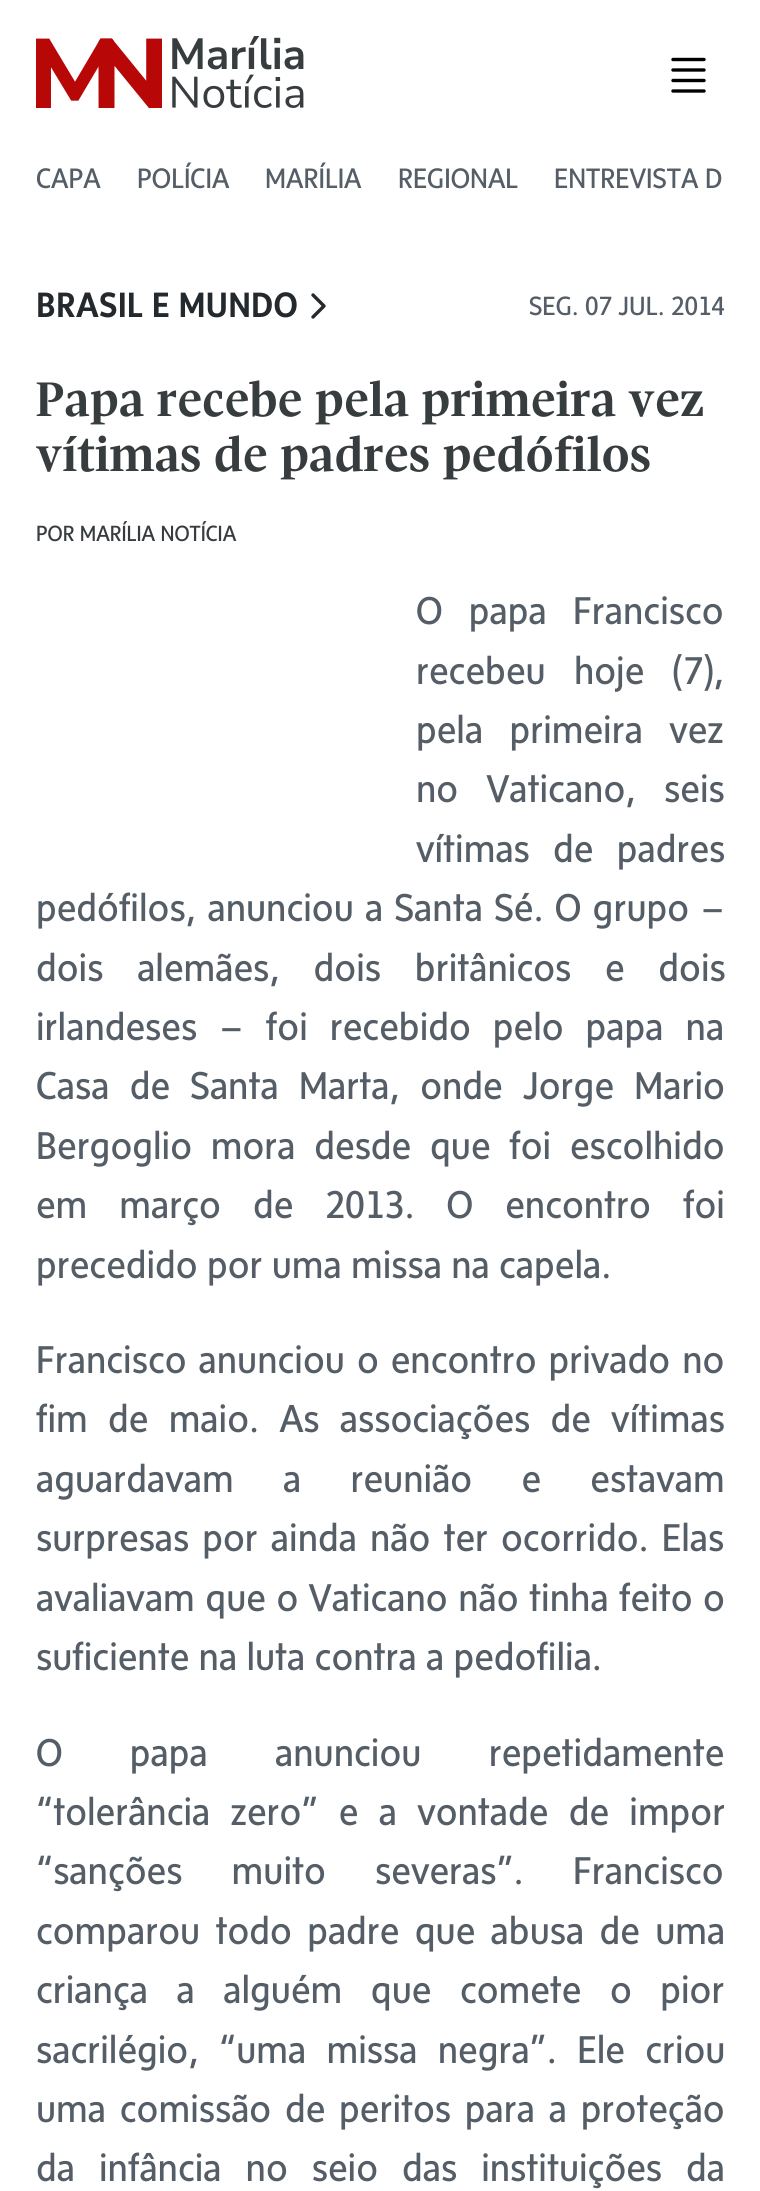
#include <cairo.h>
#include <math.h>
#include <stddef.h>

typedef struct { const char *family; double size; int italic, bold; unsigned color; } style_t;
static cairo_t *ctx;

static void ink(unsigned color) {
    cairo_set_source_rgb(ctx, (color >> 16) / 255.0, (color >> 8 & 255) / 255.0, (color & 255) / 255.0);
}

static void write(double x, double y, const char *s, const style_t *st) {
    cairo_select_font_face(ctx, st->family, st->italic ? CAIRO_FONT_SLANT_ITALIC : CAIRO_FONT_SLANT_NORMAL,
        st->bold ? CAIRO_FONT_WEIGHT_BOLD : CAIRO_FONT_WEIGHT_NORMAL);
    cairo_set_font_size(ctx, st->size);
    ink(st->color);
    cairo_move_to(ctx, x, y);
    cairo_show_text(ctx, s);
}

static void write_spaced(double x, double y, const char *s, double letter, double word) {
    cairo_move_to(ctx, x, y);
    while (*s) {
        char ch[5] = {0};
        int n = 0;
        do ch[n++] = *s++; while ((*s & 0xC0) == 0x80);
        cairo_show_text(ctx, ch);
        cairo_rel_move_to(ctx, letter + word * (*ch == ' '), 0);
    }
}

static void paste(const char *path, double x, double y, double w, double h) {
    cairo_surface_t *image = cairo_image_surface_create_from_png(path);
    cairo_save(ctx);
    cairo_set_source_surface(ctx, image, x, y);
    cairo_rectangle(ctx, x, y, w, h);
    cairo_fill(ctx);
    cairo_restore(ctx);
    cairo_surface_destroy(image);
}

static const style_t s1 = {"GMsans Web", 28.75, 0, 0, 0x555e67};
static const style_t s2 = {"GMsans Web", 36, 0, 1, 0x24292e};
static const style_t s3 = {"GMsans Web", 27, 0, 0, 0x555e67};
static const style_t s4 = {"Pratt", 49.5, 0, 1, 0x373d3f};
static const style_t s5 = {"GMsans Web", 22.5, 0, 0, 0x373d3f};
static const style_t s6 = {"GMsans Web", 39.6, 0, 0, 0x555e67};

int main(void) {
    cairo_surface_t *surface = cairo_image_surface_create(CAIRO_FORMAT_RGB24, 760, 2191);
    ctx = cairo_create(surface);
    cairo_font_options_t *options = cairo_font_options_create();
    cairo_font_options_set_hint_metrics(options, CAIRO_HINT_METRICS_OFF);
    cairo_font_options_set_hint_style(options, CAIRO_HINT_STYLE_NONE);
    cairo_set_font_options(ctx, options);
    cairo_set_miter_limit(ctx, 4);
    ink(0xffffff);
    cairo_paint(ctx);
    paste("pic1.png", 36, 36, 268, 72);
    cairo_new_path(ctx);
    cairo_move_to(ctx, 673, 59.5);
    cairo_line_to(ctx, 704, 59.5);
    cairo_move_to(ctx, 673, 70);
    cairo_line_to(ctx, 704, 70);
    cairo_move_to(ctx, 673, 80.5);
    cairo_line_to(ctx, 704, 80.5);
    cairo_move_to(ctx, 673, 91);
    cairo_line_to(ctx, 704, 91);
    ink(0x000000);
    cairo_set_line_width(ctx, 3.4);
    cairo_set_line_cap(ctx, CAIRO_LINE_CAP_ROUND);
    cairo_set_line_join(ctx, CAIRO_LINE_JOIN_ROUND);
    cairo_stroke(ctx);
    write(36, 188, "CAPA", &s1);
    write(137, 188, "POLÍCIA", &s1);
    write(265, 188, "MARÍLIA", &s1);
    write(398, 188, "REGIONAL", &s1);
    write(554, 188, "ENTREVISTA D", &s1);
    write(36, 317, "BRASIL E MUNDO", &s2);
    cairo_new_path(ctx);
    cairo_move_to(ctx, 313, 295);
    cairo_line_to(ctx, 324, 306);
    cairo_line_to(ctx, 313, 317);
    cairo_stroke(ctx);
    write(529, 315, "SEG. 07 JUL. 2014", &s3);
    write(36, 416, "Papa recebe pela primeira vez", &s4);
    write(36, 471, "vítimas de padres pedófilos", &s4);
    write(36, 541, "POR MARÍLIA NOTÍCIA", &s5);
    cairo_set_font_size(ctx, 39.6);
    ink(0x555e67);
    write_spaced(416, 624, "O papa Francisco", 0, 17);
    write_spaced(416, 684, "recebeu hoje (7),", 0, 19);
    write_spaced(416, 743, "pela primeira vez", 0, 17);
    write_spaced(416, 802, "no Vaticano, seis", 0, 19);
    write_spaced(416, 862, "vítimas de padres", 0, 14);
    write_spaced(36, 921, "pedófilos, anunciou a Santa Sé. O grupo –", 0, 2);
    write_spaced(36, 981, "dois alemães, dois britânicos e dois", 0, 24.5);
    write_spaced(36, 1040, "irlandeses – foi recebido pelo papa na", 0, 12.75);
    write_spaced(36, 1099, "Casa de Santa Marta, onde Jorge Mario", 0, 11);
    write_spaced(36, 1159, "Bergoglio mora desde que foi escolhido", 0, 9.5);
    write_spaced(36, 1218, "em março de 2013. O encontro foi", 0, 22.75);
    write(36, 1278, "precedido por uma missa na capela.", &s6);
    write_spaced(36, 1373, "Francisco anunciou o encontro privado no", 0, 2.75);
    write_spaced(36, 1432, "fim de maio. As associações de vítimas", 0, 11);
    write_spaced(36, 1492, "aguardavam a reunião e estavam", 0, 40);
    write_spaced(36, 1551, "surpresas por ainda não ter ocorrido. Elas", 0, 3.75);
    write_spaced(36, 1611, "avaliavam que o Vaticano não tinha feito o", 0, 1.25);
    write(36, 1670, "suficiente na luta contra a pedofilia.", &s6);
    write_spaced(36, 1766, "O papa anunciou repetidamente", 0, 58);
    write_spaced(36, 1825, "“tolerância zero” e a vontade de impor", 0, 11);
    write_spaced(36, 1884, "“sanções muito severas”. Francisco", 0, 40);
    write_spaced(36, 1944, "comparou todo padre que abusa de uma", 0, 6);
    write_spaced(36, 2003, "criança a alguém que comete o pior", 0, 19.25);
    write_spaced(36, 2063, "sacrilégio, “uma missa negra”. Ele criou", 0, 11);
    write_spaced(36, 2122, "uma comissão de peritos para a proteção", 0, 4.5);
    write_spaced(36, 2181, "da infância no seio das instituições da", 0, 14.75);
    cairo_surface_write_to_png(surface, "screenshot.png");
    cairo_font_options_destroy(options);
    cairo_destroy(ctx);
    cairo_surface_destroy(surface);
    return 0;
}
